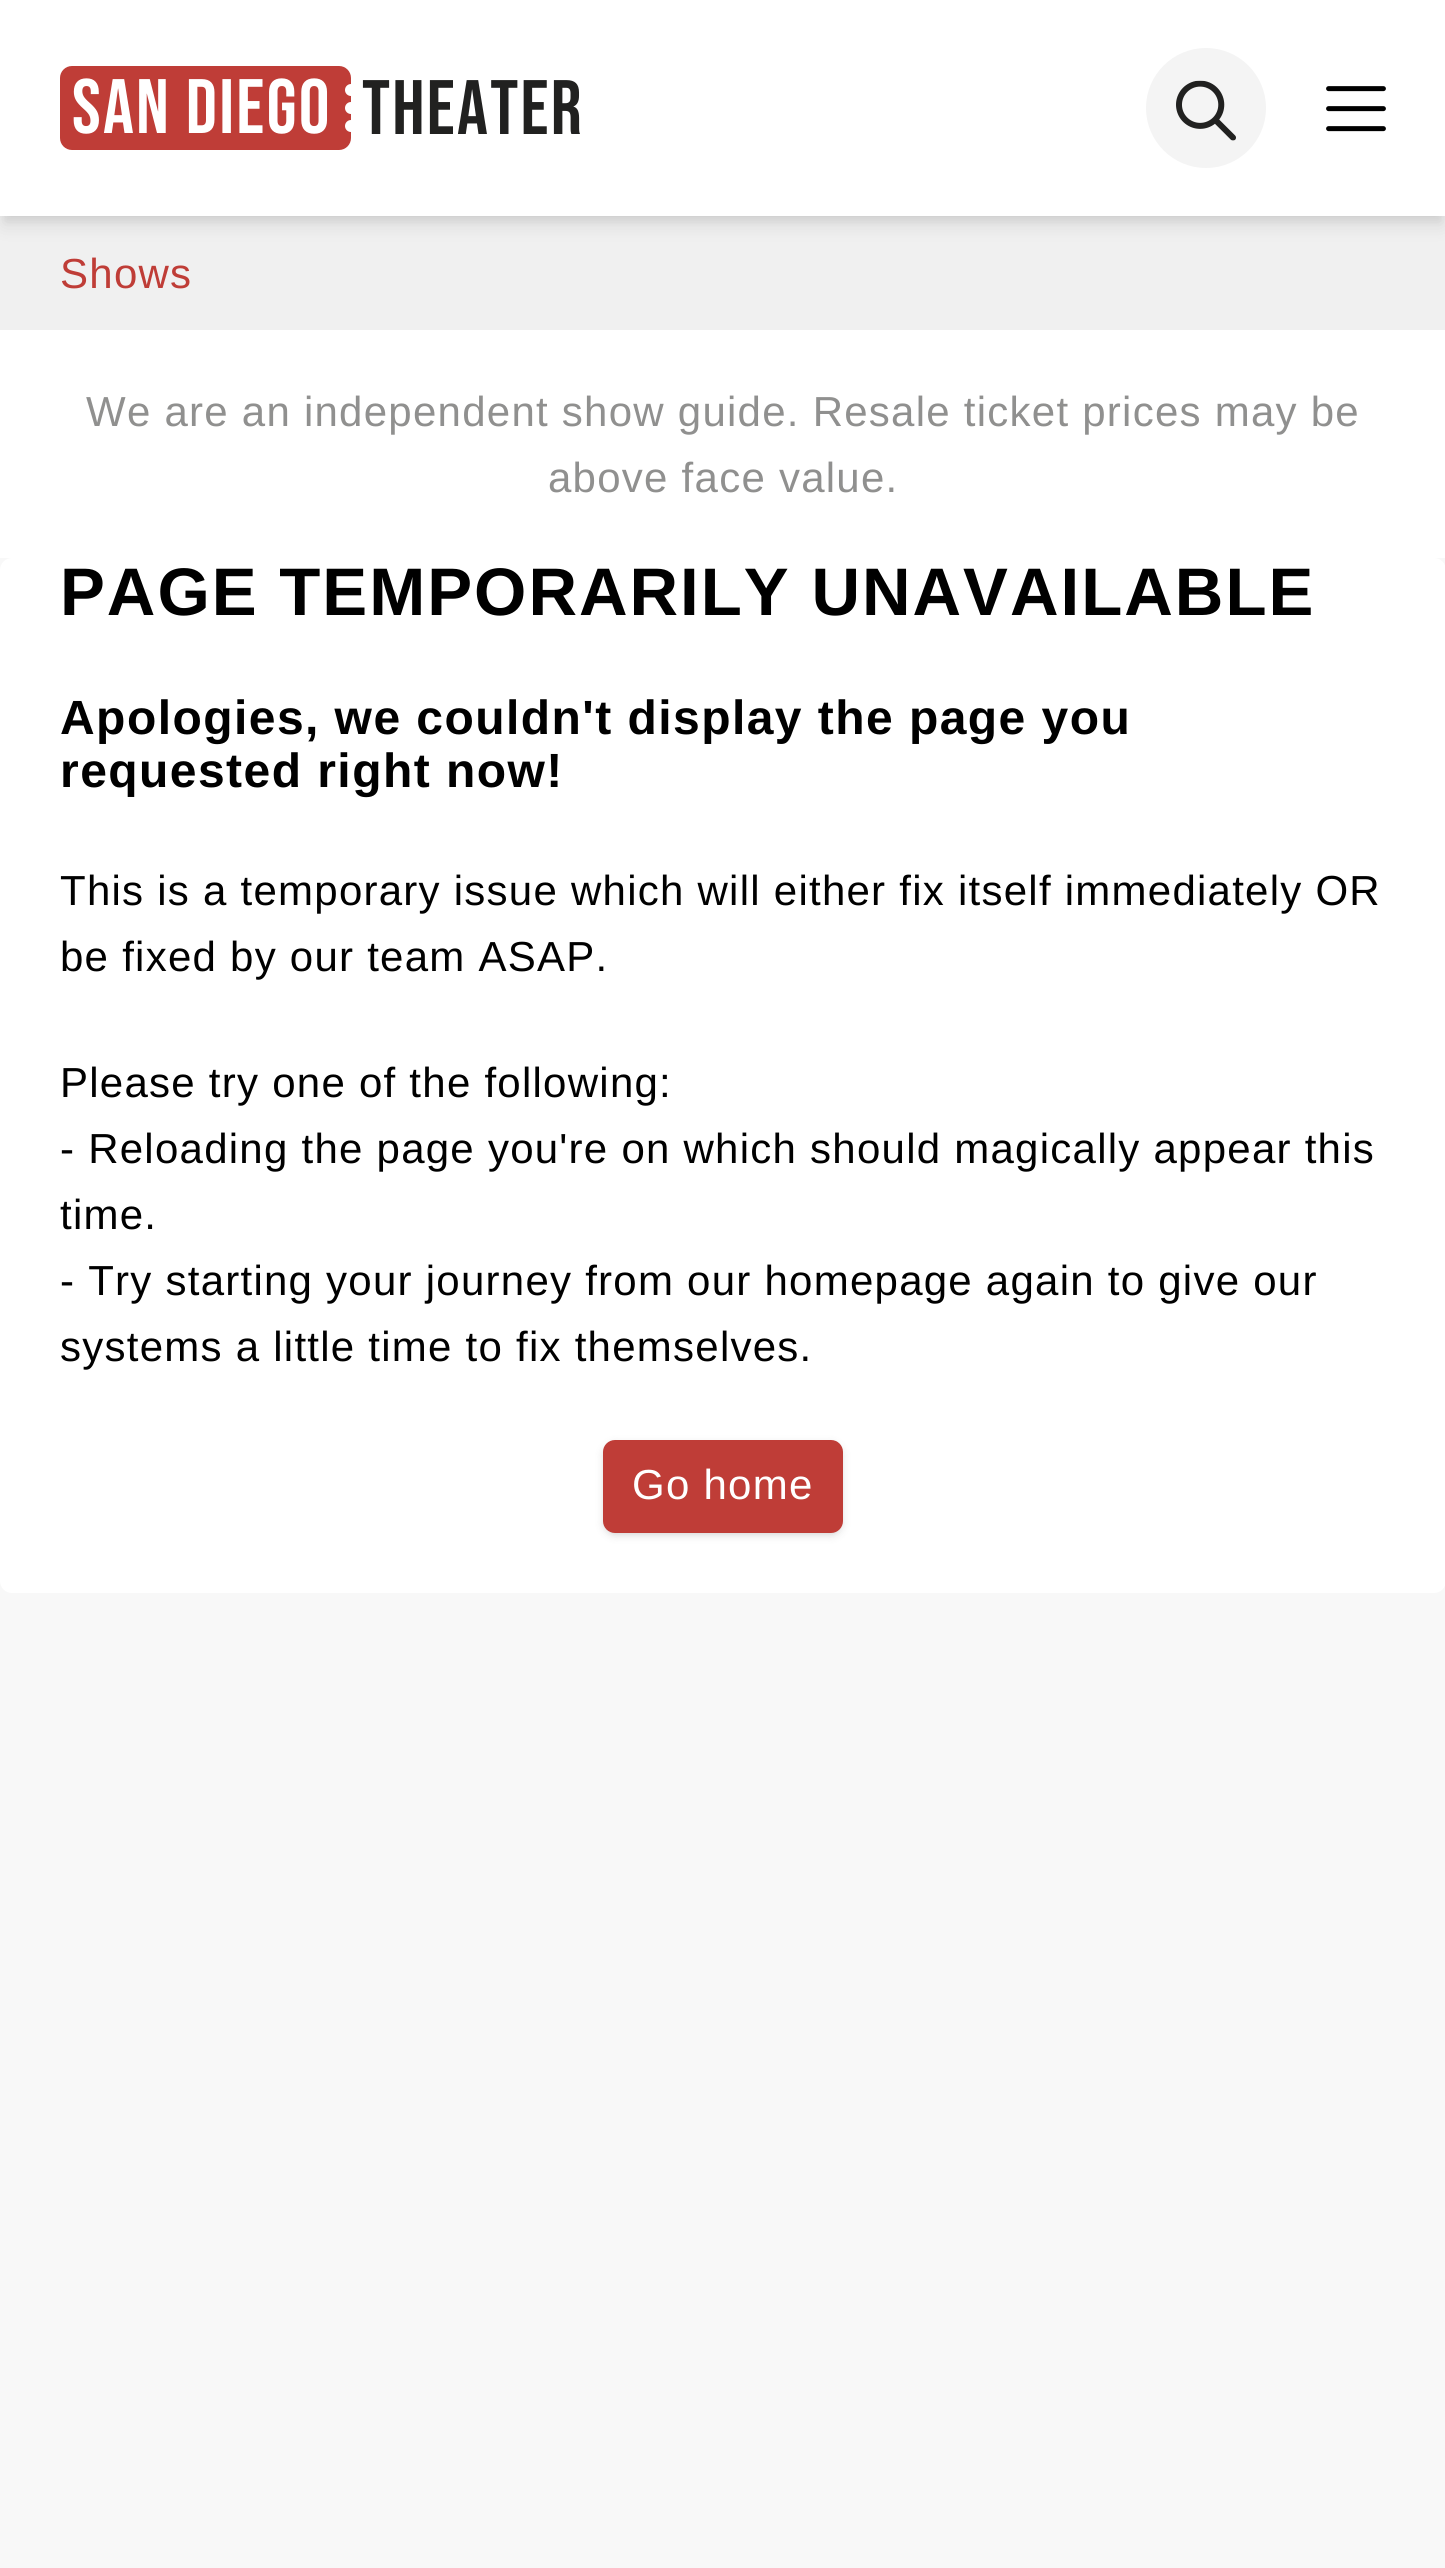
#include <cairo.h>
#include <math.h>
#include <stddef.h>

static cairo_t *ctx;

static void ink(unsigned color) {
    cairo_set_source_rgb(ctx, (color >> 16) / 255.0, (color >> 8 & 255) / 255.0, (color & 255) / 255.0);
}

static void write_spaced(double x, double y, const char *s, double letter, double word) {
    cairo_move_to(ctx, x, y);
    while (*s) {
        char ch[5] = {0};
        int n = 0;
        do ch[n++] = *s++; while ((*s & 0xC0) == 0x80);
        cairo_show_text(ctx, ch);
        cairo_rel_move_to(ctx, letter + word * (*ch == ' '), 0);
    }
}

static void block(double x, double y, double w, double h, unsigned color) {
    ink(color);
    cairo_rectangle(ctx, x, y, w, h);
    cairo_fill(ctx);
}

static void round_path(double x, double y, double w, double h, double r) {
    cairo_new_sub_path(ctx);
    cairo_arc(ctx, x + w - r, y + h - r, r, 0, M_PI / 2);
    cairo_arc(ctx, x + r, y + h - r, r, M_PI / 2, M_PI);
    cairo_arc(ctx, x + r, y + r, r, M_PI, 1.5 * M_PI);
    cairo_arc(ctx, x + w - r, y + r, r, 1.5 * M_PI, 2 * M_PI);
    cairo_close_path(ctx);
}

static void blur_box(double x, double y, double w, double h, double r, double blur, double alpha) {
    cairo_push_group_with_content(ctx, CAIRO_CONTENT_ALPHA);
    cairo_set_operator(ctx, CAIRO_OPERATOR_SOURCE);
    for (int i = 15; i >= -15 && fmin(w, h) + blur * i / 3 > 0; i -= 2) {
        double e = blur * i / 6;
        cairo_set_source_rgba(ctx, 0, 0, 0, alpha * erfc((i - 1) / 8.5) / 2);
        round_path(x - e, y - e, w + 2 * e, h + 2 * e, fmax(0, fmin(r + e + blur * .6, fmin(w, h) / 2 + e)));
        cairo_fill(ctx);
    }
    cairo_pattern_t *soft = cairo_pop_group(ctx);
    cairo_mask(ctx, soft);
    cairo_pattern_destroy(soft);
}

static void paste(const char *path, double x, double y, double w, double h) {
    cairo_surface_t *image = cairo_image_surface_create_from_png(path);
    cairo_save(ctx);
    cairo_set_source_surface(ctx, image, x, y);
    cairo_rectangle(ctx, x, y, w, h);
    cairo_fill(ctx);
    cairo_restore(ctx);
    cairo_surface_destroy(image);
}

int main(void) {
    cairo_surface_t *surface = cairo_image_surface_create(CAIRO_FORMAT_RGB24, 1445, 2568);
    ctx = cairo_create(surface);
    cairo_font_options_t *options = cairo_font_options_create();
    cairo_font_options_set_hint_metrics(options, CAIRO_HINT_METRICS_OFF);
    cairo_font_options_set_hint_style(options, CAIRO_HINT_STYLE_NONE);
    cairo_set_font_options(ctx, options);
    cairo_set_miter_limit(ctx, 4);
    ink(0xf8f8f8);
    cairo_paint(ctx);
    block(0, 216, 1445, 114, 0xf0f0f0);
    ink(0x000000);
    blur_box(6, 12, 1434, 204, 0, 6, 0.1);
    blur_box(3, 15, 1440, 210, 0, 9, 0.1);
    block(0, 0, 1445, 216, 0xffffff);
    ink(0xbf3d37);
    round_path(60, 66, 291, 84, 12);
    cairo_fill(ctx);
    cairo_select_font_face(ctx, "Bebas Neue", CAIRO_FONT_SLANT_NORMAL, CAIRO_FONT_WEIGHT_NORMAL);
    cairo_set_font_size(ctx, 77);
    ink(0xffffff);
    write_spaced(72, 133, "San Diego", 2.25, 0);
    cairo_new_path(ctx);
    cairo_arc(ctx, 351, 90, 6, 0, 2 * M_PI);
    cairo_fill(ctx);
    cairo_arc(ctx, 351, 108, 6, 0, 2 * M_PI);
    cairo_fill(ctx);
    cairo_arc(ctx, 351, 126, 6, 0, 2 * M_PI);
    cairo_fill(ctx);
    ink(0x212120);
    write_spaced(362, 134, "Theater", 2.25, 0);
    ink(0xf4f4f4);
    cairo_new_path(ctx);
    cairo_arc(ctx, 1206, 108, 60, 0, 2 * M_PI);
    cairo_fill(ctx);
    paste("pic1.png", 1176, 80, 60, 61);
    paste("pic2.png", 1326, 86, 60, 46);
    cairo_select_font_face(ctx, "Liberation Sans", CAIRO_FONT_SLANT_NORMAL, CAIRO_FONT_WEIGHT_NORMAL);
    cairo_set_font_size(ctx, 42);
    ink(0xbf3d37);
    write_spaced(60, 288, "Shows", 1.25, 0);
    block(0, 330, 1445, 228, 0xffffff);
    ink(0x90908f);
    write_spaced(86, 426, "We are an independent show guide. Resale ticket prices may be", 1.25, 0);
    write_spaced(548, 492, "above face value.", 1.25, 0);
    ink(0xffffff);
    round_path(0, 558, 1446, 1035, 12);
    cairo_fill(ctx);
    cairo_select_font_face(ctx, "Liberation Sans", CAIRO_FONT_SLANT_NORMAL, CAIRO_FONT_WEIGHT_BOLD);
    cairo_set_font_size(ctx, 67.25);
    ink(0x000000);
    write_spaced(60, 615, "PAGE TEMPORARILY UNAVAILABLE", 2, 0);
    cairo_set_font_size(ctx, 48);
    write_spaced(60, 734, "Apologies, we couldn't display the page you", 1.45, 0);
    write_spaced(60, 787, "requested right now!", 1.45, 0);
    cairo_select_font_face(ctx, "Liberation Sans", CAIRO_FONT_SLANT_NORMAL, CAIRO_FONT_WEIGHT_NORMAL);
    cairo_set_font_size(ctx, 42);
    write_spaced(60, 905, "This is a temporary issue which will either fix itself immediately OR", 1.25, 0);
    write_spaced(60, 971, "be fixed by our team ASAP.", 1.25, 0);
    write_spaced(60, 1097, "Please try one of the following:", 1.25, 0);
    write_spaced(60, 1163, "- Reloading the page you're on which should magically appear this", 1.25, 0);
    write_spaced(60, 1229, "time.", 1.25, 0);
    write_spaced(60, 1295, "- Try starting your journey from our homepage again to give our", 1.25, 0);
    write_spaced(60, 1361, "systems a little time to fix themselves.", 1.25, 0);
    ink(0x000000);
    blur_box(606, 1446, 234, 87, 9, 3, 0.1);
    blur_box(603, 1443, 240, 93, 12, 4.5, 0.1);
    ink(0xbf3d37);
    round_path(603, 1440, 240, 93, 12);
    cairo_fill(ctx);
    ink(0xffffff);
    write_spaced(632, 1499, "Go home", 1.25, 0);
    cairo_surface_write_to_png(surface, "screenshot.png");
    cairo_font_options_destroy(options);
    cairo_destroy(ctx);
    cairo_surface_destroy(surface);
    return 0;
}
